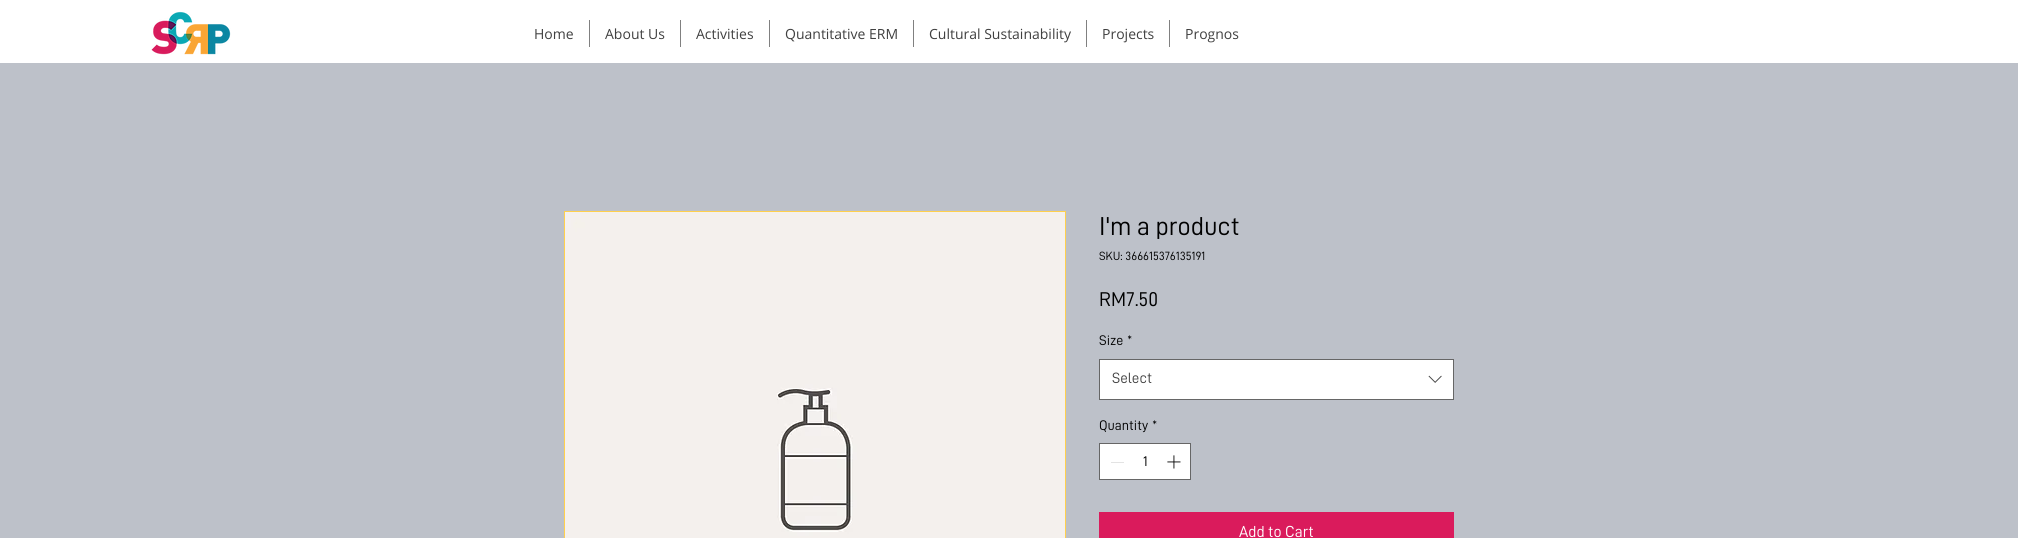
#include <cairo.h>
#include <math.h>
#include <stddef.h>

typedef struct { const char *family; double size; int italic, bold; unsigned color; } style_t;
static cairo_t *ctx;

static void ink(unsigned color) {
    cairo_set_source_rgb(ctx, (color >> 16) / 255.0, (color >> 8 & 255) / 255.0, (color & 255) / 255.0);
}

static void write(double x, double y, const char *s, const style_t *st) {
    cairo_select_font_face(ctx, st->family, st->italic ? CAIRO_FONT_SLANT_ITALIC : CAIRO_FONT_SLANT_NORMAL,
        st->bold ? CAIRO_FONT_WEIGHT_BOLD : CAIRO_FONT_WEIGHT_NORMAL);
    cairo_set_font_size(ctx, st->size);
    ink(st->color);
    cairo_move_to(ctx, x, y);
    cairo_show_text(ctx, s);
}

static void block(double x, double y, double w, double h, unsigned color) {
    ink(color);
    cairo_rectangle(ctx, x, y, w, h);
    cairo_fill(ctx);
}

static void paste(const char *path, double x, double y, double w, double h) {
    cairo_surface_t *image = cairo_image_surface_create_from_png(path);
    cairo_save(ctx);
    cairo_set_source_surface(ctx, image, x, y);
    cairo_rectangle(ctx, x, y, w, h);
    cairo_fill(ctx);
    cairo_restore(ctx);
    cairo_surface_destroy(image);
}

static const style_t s1 = {"Open Sans", 14, 0, 0, 0x404040};
static const style_t s2 = {"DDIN", 26, 0, 0, 0x000000};
static const style_t s3 = {"DDIN", 12, 0, 0, 0x000000};
static const style_t s4 = {"DDIN", 20, 0, 0, 0x000000};
static const style_t s5 = {"DDIN", 14, 0, 0, 0x000000};
static const style_t s6 = {"DDIN", 15, 0, 0, 0x404040};
static const style_t s7 = {"DDIN", 16, 0, 0, 0xffffff};

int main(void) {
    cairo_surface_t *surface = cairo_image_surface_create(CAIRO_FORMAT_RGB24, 2018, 538);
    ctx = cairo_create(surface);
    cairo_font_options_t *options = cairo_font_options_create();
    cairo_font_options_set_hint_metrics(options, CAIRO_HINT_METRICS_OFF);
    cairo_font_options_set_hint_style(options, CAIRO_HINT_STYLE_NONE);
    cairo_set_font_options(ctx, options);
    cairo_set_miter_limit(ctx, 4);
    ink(0xbdc1c9);
    cairo_paint(ctx);
    block(0, 0, 2018, 63, 0xffffff);
    paste("pic1.png", 151, 11, 80, 44);
    write(534, 39, "Home", &s1);
    block(589, 20, 1, 27, 0x808080);
    write(605, 39, "About Us", &s1);
    block(680, 20, 1, 27, 0x808080);
    write(696, 39, "Activities", &s1);
    block(769, 20, 1, 27, 0x808080);
    write(785, 39, "Quantitative ERM", &s1);
    block(913, 20, 1, 27, 0x808080);
    write(929, 39, "Cultural Sustainability", &s1);
    block(1086, 20, 1, 27, 0x808080);
    write(1102, 39, "Projects", &s1);
    block(1169, 20, 1, 27, 0x808080);
    write(1185, 39, "Prognos", &s1);
    cairo_rectangle(ctx, 564.5, 211.5, 501, 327);
    ink(0xffd04d);
    cairo_set_line_width(ctx, 1);
    cairo_stroke(ctx);
    paste("pic2.png", 565, 212, 500, 326);
    write(1099, 235, "I'm a product", &s2);
    write(1099, 260, "SKU: 366615376135191", &s3);
    write(1099, 306, "RM7.50", &s4);
    write(1099, 345, "Size", &s5);
    write(1127, 345, "*", &s5);
    ink(0xffffff);
    cairo_rectangle(ctx, 1099.5, 359.5, 354, 40);
    cairo_fill_preserve(ctx);
    ink(0x666666);
    cairo_stroke(ctx);
    write(1112, 383, "Select", &s6);
    paste("pic3.png", 1428, 375, 14, 8);
    write(1099, 430, "Quantity", &s5);
    write(1152, 430, "*", &s5);
    ink(0xffffff);
    cairo_rectangle(ctx, 1099.5, 443.5, 91, 36);
    cairo_fill_preserve(ctx);
    ink(0x666666);
    cairo_stroke(ctx);
    block(1111, 462, 13, 1, 0xe3e3e3);
    write(1143, 466, "1", &s5);
    paste("pic4.png", 1167, 455, 14, 14);
    block(1099, 512, 355, 26, 0xda1b5c);
    write(1239, 537, "Add to Cart", &s7);
    cairo_surface_write_to_png(surface, "screenshot.png");
    cairo_font_options_destroy(options);
    cairo_destroy(ctx);
    cairo_surface_destroy(surface);
    return 0;
}
